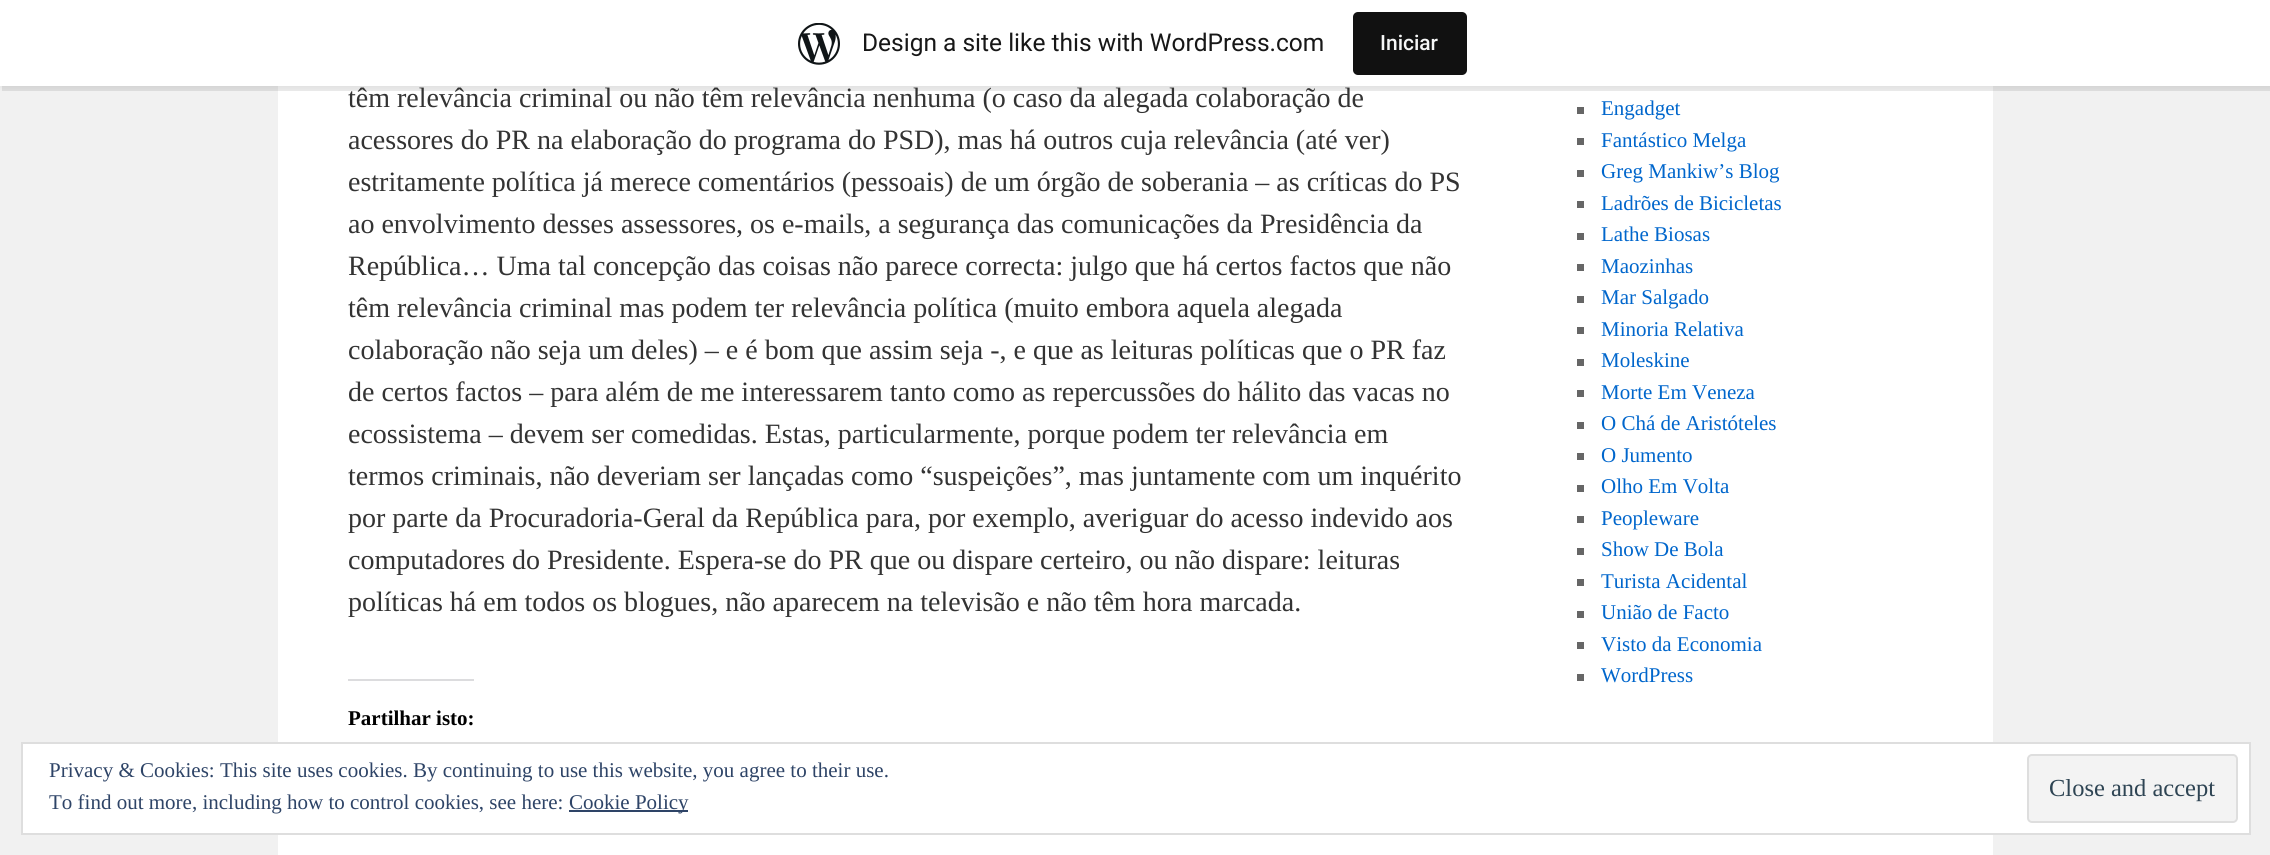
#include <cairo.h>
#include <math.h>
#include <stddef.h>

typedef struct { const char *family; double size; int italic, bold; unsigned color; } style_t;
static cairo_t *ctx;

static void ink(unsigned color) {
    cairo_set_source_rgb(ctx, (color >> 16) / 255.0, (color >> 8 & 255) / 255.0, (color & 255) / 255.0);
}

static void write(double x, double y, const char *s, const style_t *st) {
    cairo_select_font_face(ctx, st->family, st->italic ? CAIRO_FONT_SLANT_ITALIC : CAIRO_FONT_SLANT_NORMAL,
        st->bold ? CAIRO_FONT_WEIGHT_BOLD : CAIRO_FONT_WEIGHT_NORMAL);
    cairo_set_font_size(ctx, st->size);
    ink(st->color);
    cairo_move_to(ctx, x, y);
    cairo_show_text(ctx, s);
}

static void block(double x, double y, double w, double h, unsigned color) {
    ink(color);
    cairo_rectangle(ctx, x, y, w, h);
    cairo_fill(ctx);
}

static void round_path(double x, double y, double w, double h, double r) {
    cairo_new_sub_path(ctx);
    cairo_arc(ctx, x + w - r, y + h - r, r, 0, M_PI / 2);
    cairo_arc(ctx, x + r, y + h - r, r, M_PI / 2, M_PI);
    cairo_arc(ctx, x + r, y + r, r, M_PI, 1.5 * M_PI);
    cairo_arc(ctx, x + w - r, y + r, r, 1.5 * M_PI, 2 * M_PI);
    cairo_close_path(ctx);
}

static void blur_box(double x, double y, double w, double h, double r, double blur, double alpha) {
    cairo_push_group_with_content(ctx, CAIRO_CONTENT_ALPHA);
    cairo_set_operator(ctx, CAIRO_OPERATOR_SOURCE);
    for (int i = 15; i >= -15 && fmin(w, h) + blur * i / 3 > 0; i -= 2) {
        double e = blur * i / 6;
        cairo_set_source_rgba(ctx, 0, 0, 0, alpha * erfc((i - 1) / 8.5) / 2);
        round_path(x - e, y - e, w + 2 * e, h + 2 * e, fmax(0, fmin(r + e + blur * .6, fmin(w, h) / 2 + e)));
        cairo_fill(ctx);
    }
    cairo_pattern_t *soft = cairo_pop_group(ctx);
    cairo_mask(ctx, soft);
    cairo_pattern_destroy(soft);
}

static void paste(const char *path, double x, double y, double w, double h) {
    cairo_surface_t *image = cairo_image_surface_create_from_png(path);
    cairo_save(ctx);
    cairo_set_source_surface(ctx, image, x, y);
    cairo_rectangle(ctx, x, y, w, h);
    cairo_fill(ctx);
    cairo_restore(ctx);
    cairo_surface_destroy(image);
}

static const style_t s1 = {"Roboto", 24.5, 0, 0, 0x171717};
static const style_t s2 = {"Roboto Medium", 21, 0, 0, 0xf6f7f7};
static const style_t s3 = {"Liberation Serif", 28, 0, 0, 0x333333};
static const style_t s4 = {"Liberation Serif", 21, 0, 1, 0x000000};
static const style_t s5 = {"Liberation Serif", 21, 0, 0, 0x0066cc};
static const style_t s6 = {"Liberation Serif", 21, 0, 0, 0x2e4467};
static const style_t s7 = {"Liberation Serif", 24.5, 0, 0, 0x2e4453};

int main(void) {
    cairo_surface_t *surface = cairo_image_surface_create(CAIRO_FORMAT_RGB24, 2270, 855);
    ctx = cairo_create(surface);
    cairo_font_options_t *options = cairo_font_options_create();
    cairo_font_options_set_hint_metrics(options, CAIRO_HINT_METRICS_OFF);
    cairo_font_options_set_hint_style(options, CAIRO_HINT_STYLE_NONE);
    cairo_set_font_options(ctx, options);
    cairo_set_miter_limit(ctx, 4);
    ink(0xf1f1f1);
    cairo_paint(ctx);
    block(278, 86, 1715, 769, 0xffffff);
    ink(0x000000);
    blur_box(0, 2, 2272, 86, 0, 2, 0.05);
    cairo_set_source_rgba(ctx, 0, 0, 0, 0.08);
    cairo_new_path(ctx);
    cairo_move_to(ctx, 2, 86);
    cairo_line_to(ctx, 2, 91);
    cairo_line_to(ctx, 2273, 91);
    cairo_line_to(ctx, 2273, 5);
    cairo_line_to(ctx, 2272, 5);
    cairo_line_to(ctx, 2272, 86);
    cairo_close_path(ctx);
    cairo_fill(ctx);
    block(0, 0, 2270, 86, 0xffffff);
    paste("pic1.png", 798, 23, 42, 42);
    write(862, 51, "Design a site like this with WordPress.com", &s1);
    ink(0x111111);
    round_path(1353, 12, 114, 63, 5);
    cairo_fill(ctx);
    write(1380, 50, "Iniciar", &s2);
    write(348, 107, "têm relevância criminal ou não têm relevância nenhuma (o caso da alegada colaboração de", &s3);
    write(348, 149, "acessores do PR na elaboração do programa do PSD), mas há outros cuja relevância (até ver)", &s3);
    write(348, 191, "estritamente política já merece comentários (pessoais) de um órgão de soberania – as críticas do PS", &s3);
    write(348, 233, "ao envolvimento desses assessores, os e-mails, a segurança das comunicações da Presidência da", &s3);
    write(348, 275, "República… Uma tal concepção das coisas não parece correcta: julgo que há certos factos que não", &s3);
    write(348, 317, "têm relevância criminal mas podem ter relevância política (muito embora aquela alegada", &s3);
    write(348, 359, "colaboração não seja um deles) – e é bom que assim seja -, e que as leituras políticas que o PR faz", &s3);
    write(348, 401, "de certos factos – para além de me interessarem tanto como as repercussões do hálito das vacas no", &s3);
    write(348, 443, "ecossistema – devem ser comedidas. Estas, particularmente, porque podem ter relevância em", &s3);
    write(348, 485, "termos criminais, não deveriam ser lançadas como “suspeições”, mas juntamente com um inquérito", &s3);
    write(348, 527, "por parte da Procuradoria-Geral da República para, por exemplo, averiguar do acesso indevido aos", &s3);
    write(348, 569, "computadores do Presidente. Espera-se do PR que ou dispare certeiro, ou não dispare: leituras", &s3);
    write(348, 611, "políticas há em todos os blogues, não aparecem na televisão e não têm hora marcada.", &s3);
    block(348, 679, 126, 2, 0xdcdcde);
    write(348, 725, "Partilhar isto:", &s4);
    block(1577, 107, 7, 7, 0x666666);
    write(1601, 115, "Engadget", &s5);
    block(1577, 138, 7, 7, 0x666666);
    write(1601, 147, "Fantástico Melga", &s5);
    block(1577, 170, 7, 7, 0x666666);
    write(1601, 178, "Greg Mankiw’s Blog", &s5);
    block(1577, 201, 7, 7, 0x666666);
    write(1601, 210, "Ladrões de Bicicletas", &s5);
    block(1577, 233, 7, 7, 0x666666);
    write(1601, 241, "Lathe Biosas", &s5);
    block(1577, 264, 7, 7, 0x666666);
    write(1601, 273, "Maozinhas", &s5);
    block(1577, 296, 7, 7, 0x666666);
    write(1601, 304, "Mar Salgado", &s5);
    block(1577, 327, 7, 7, 0x666666);
    write(1601, 336, "Minoria Relativa", &s5);
    block(1577, 359, 7, 7, 0x666666);
    write(1601, 367, "Moleskine", &s5);
    block(1577, 390, 7, 7, 0x666666);
    write(1601, 399, "Morte Em Veneza", &s5);
    block(1577, 422, 7, 7, 0x666666);
    write(1601, 430, "O Chá de Aristóteles", &s5);
    block(1577, 453, 7, 7, 0x666666);
    write(1601, 462, "O Jumento", &s5);
    block(1577, 485, 7, 7, 0x666666);
    write(1601, 493, "Olho Em Volta", &s5);
    block(1577, 516, 7, 7, 0x666666);
    write(1601, 525, "Peopleware", &s5);
    block(1577, 548, 7, 7, 0x666666);
    write(1601, 556, "Show De Bola", &s5);
    block(1577, 579, 7, 7, 0x666666);
    write(1601, 588, "Turista Acidental", &s5);
    block(1577, 611, 7, 7, 0x666666);
    write(1601, 619, "União de Facto", &s5);
    block(1577, 642, 7, 7, 0x666666);
    write(1601, 651, "Visto da Economia", &s5);
    block(1577, 674, 7, 7, 0x666666);
    write(1601, 682, "WordPress", &s5);
    ink(0xffffff);
    cairo_rectangle(ctx, 22, 743, 2228, 91);
    cairo_fill_preserve(ctx);
    ink(0xdedede);
    cairo_stroke(ctx);
    write(49, 777, "Privacy & Cookies: This site uses cookies. By continuing to use this website, you agree to their use.", &s6);
    ink(0xf3f3f3);
    round_path(2028, 755, 209, 67, 4);
    cairo_fill_preserve(ctx);
    ink(0xdedede);
    cairo_stroke(ctx);
    write(2049, 796, "Close and accept", &s7);
    write(49, 809, "To find out more, including how to control cookies, see here:", &s6);
    block(569, 810, 119, 2, 0x2e4467);
    write(569, 809, "Cookie Policy", &s6);
    cairo_surface_write_to_png(surface, "screenshot.png");
    cairo_font_options_destroy(options);
    cairo_destroy(ctx);
    cairo_surface_destroy(surface);
    return 0;
}
